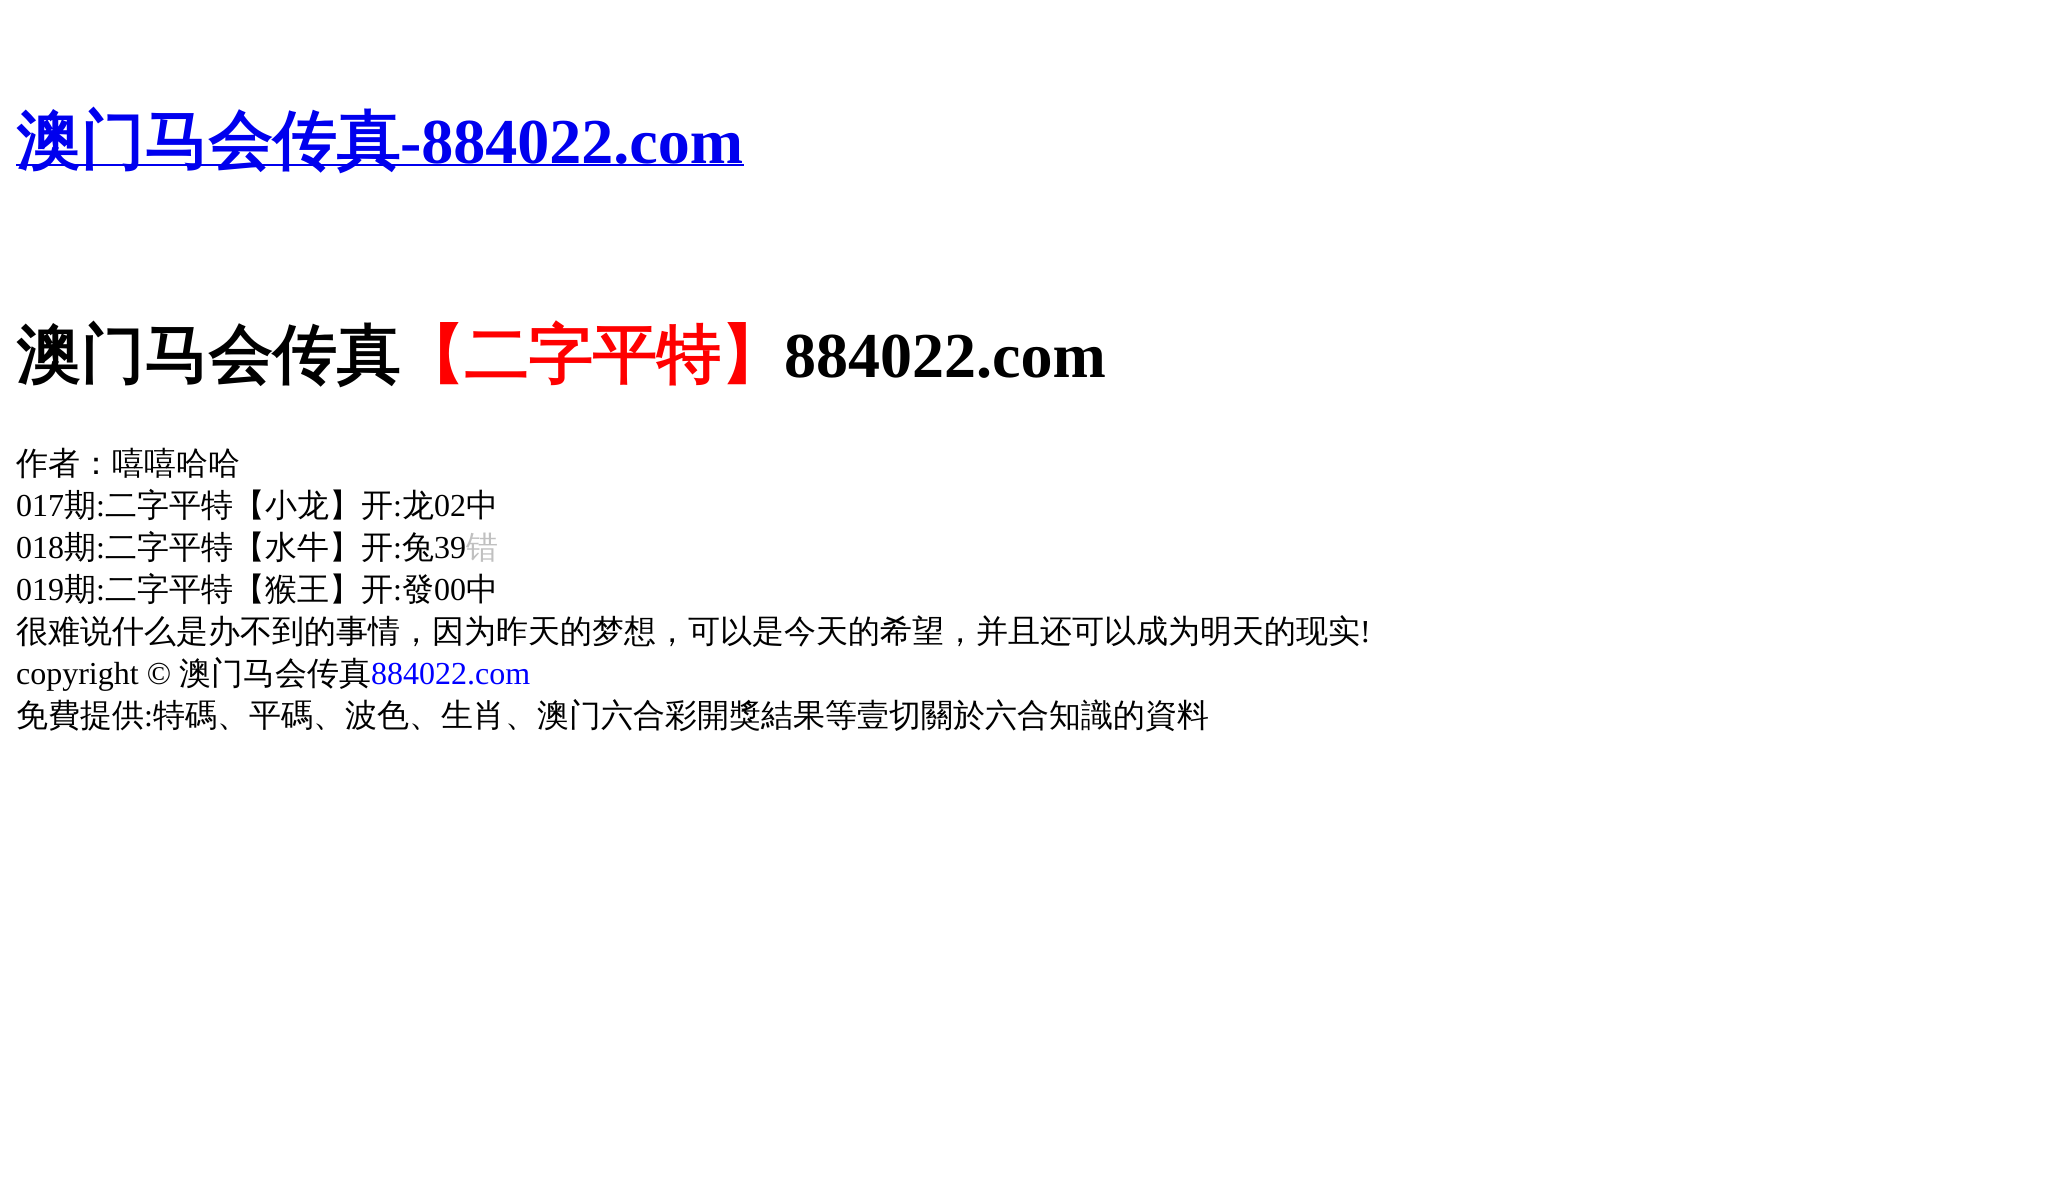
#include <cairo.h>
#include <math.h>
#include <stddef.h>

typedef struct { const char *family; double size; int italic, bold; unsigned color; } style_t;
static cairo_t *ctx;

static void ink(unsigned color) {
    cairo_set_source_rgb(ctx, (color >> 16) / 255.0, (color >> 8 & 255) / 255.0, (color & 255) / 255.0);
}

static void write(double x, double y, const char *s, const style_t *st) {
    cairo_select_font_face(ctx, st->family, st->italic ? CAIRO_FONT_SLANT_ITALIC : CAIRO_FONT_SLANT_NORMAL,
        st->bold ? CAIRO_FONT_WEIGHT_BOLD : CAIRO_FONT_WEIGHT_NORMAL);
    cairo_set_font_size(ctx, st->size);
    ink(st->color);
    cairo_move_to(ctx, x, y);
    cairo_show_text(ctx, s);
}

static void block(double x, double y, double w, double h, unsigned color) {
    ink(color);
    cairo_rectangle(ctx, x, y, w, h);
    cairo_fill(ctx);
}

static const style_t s1 = {"WenQuanYi Zen Hei", 64, 0, 1, 0x0000ee};
static const style_t s2 = {"Liberation Serif", 64, 0, 1, 0x0000ee};
static const style_t s3 = {"WenQuanYi Zen Hei", 64, 0, 1, 0x000000};
static const style_t s4 = {"WenQuanYi Zen Hei", 64, 0, 1, 0xff0000};
static const style_t s5 = {"Liberation Serif", 64, 0, 1, 0x000000};
static const style_t s6 = {"WenQuanYi Zen Hei Medium", 32, 0, 0, 0x000000};
static const style_t s7 = {"Liberation Serif", 32, 0, 0, 0x000000};
static const style_t s8 = {"WenQuanYi Zen Hei Medium", 32, 0, 0, 0xc0c0c0};
static const style_t s9 = {"Liberation Serif", 32, 0, 0, 0x0000ff};

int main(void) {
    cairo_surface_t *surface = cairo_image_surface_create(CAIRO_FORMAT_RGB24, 2062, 1187);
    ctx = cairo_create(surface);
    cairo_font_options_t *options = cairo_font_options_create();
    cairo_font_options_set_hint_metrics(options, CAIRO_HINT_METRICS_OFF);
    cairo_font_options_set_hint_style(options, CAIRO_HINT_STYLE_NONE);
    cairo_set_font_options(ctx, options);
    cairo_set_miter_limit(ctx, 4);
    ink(0xffffff);
    cairo_paint(ctx);
    block(16, 164, 728, 2, 0x0000ee);
    write(16, 163, "澳门马会传真", &s1);
    write(400, 163, "-884022.com", &s2);
    write(16, 377, "澳门马会传真", &s3);
    write(400, 377, "【二字平特】", &s4);
    write(784, 377, "884022.com", &s5);
    write(16, 474, "作者：嘻嘻哈哈", &s6);
    write(16, 516, "017", &s7);
    write(64, 516, "期", &s6);
    write(96, 516, ":", &s7);
    write(105, 516, "二字平特【小龙】开", &s6);
    write(393, 516, ":", &s7);
    write(402, 516, "龙", &s6);
    write(434, 516, "02", &s7);
    write(466, 516, "中", &s6);
    write(16, 558, "018", &s7);
    write(64, 558, "期", &s6);
    write(96, 558, ":", &s7);
    write(105, 558, "二字平特【水牛】开", &s6);
    write(393, 558, ":", &s7);
    write(402, 558, "兔", &s6);
    write(434, 558, "39", &s7);
    write(466, 558, "错", &s8);
    write(16, 600, "019", &s7);
    write(64, 600, "期", &s6);
    write(96, 600, ":", &s7);
    write(105, 600, "二字平特【猴王】开", &s6);
    write(393, 600, ":", &s7);
    write(402, 600, "發", &s6);
    write(434, 600, "00", &s7);
    write(466, 600, "中", &s6);
    write(16, 642, "很难说什么是办不到的事情，因为昨天的梦想，可以是今天的希望，并且还可以成为明天的现实", &s6);
    write(1360, 642, "!", &s7);
    write(16, 684, "copyright ©", &s7);
    write(179, 684, "澳门马会传真", &s6);
    write(371, 684, "884022.com", &s9);
    write(16, 726, "免費提供", &s6);
    write(144, 726, ":", &s7);
    write(153, 726, "特碼、平碼、波色、生肖、澳门六合彩開獎結果等壹切關於六合知識的資料", &s6);
    cairo_surface_write_to_png(surface, "screenshot.png");
    cairo_font_options_destroy(options);
    cairo_destroy(ctx);
    cairo_surface_destroy(surface);
    return 0;
}
